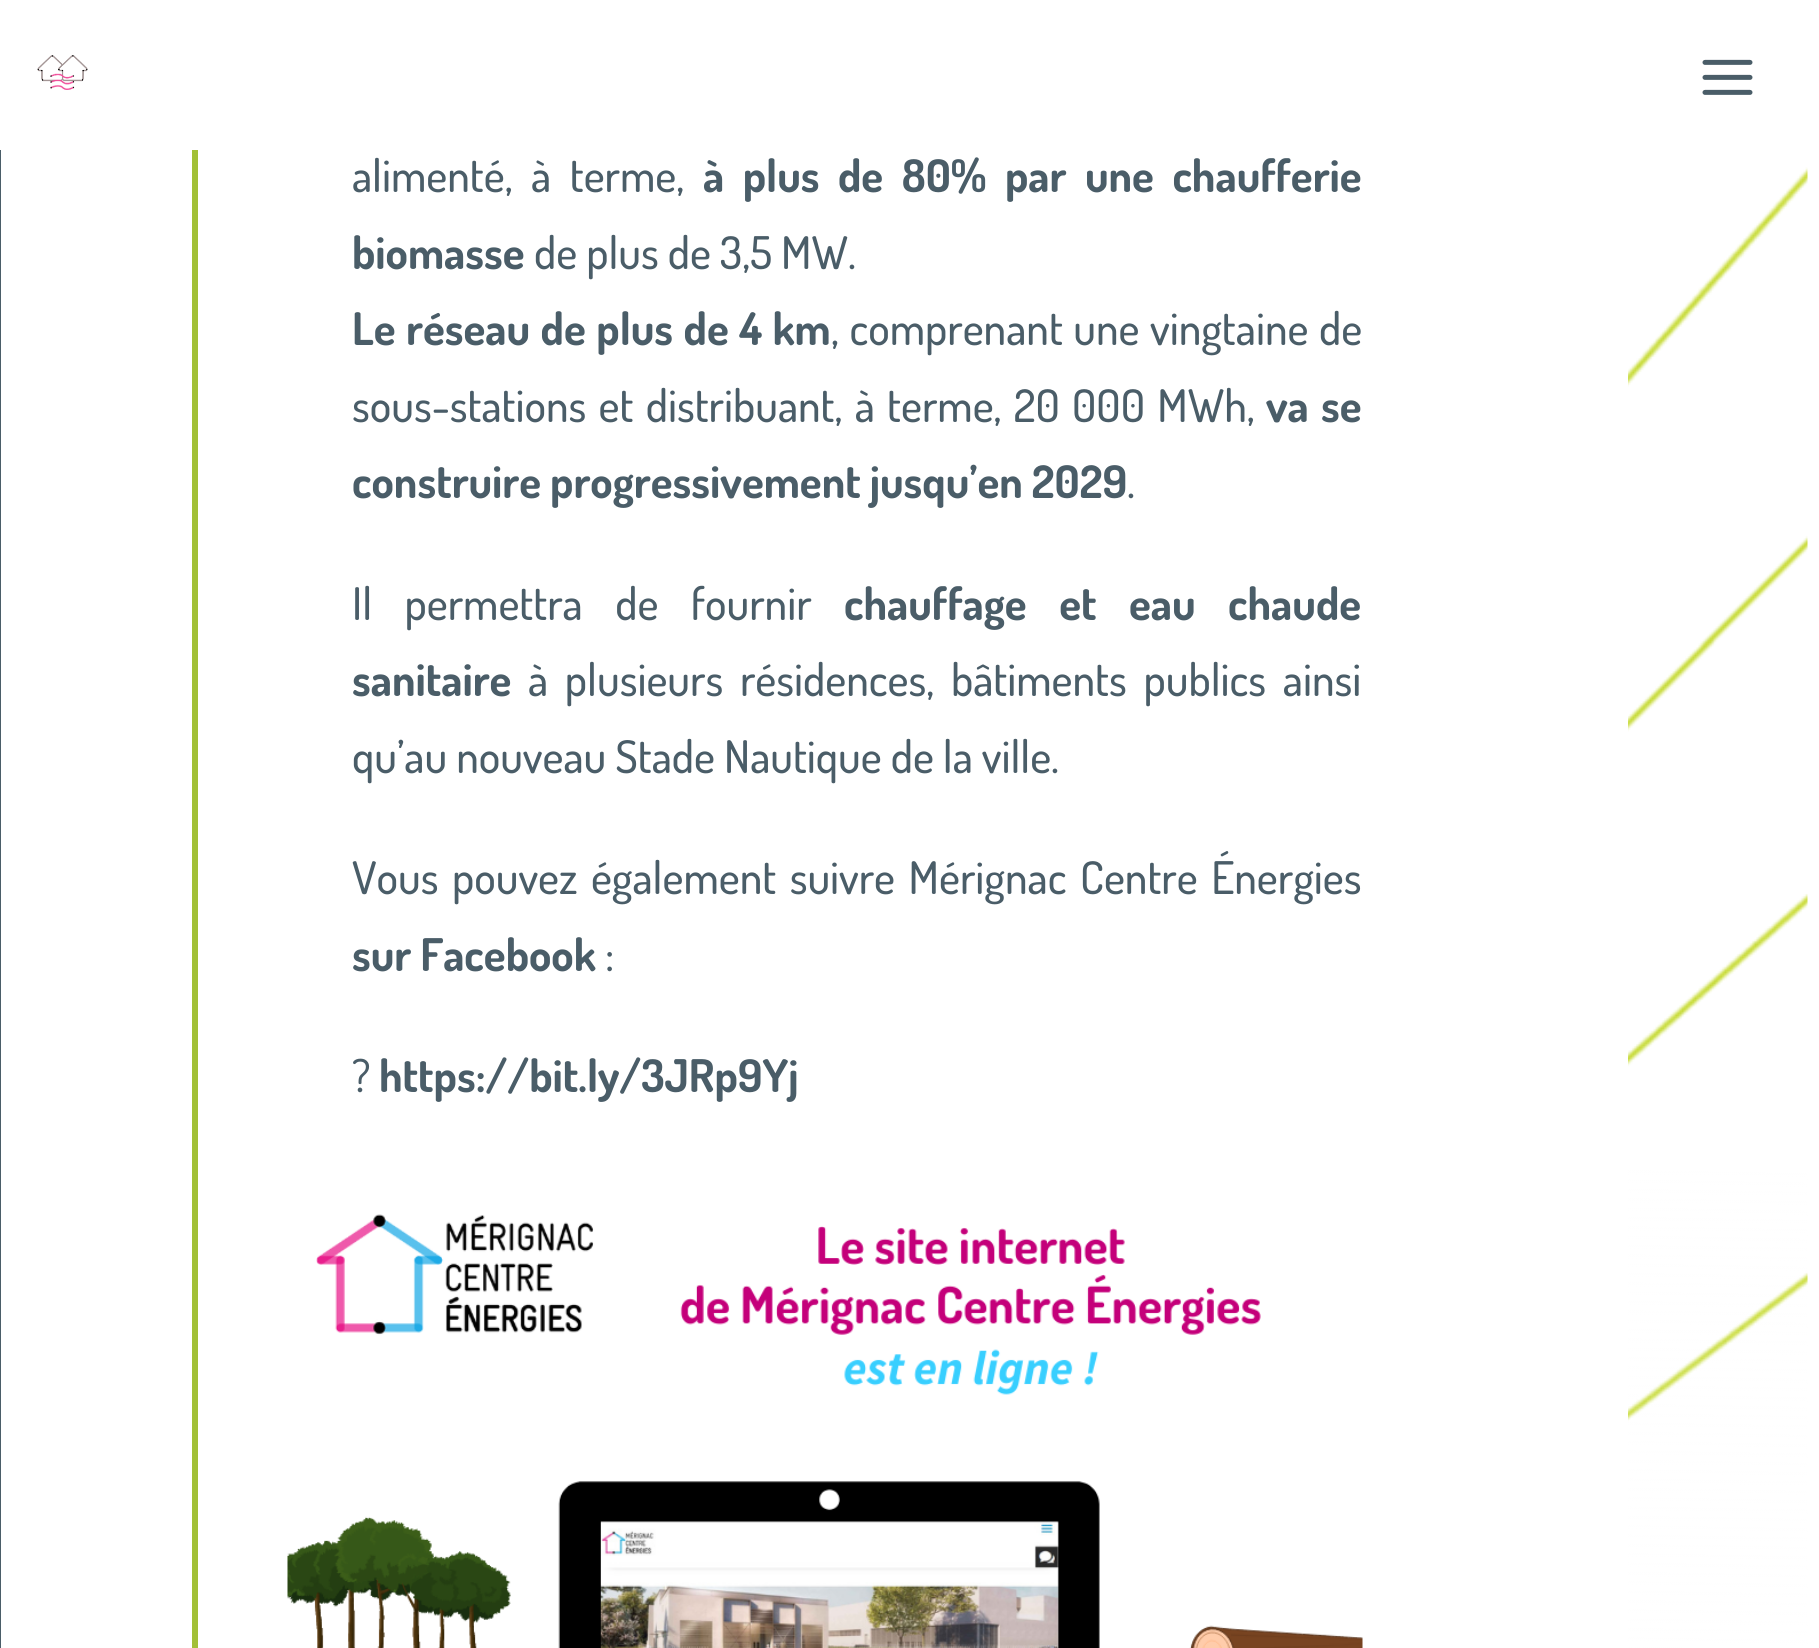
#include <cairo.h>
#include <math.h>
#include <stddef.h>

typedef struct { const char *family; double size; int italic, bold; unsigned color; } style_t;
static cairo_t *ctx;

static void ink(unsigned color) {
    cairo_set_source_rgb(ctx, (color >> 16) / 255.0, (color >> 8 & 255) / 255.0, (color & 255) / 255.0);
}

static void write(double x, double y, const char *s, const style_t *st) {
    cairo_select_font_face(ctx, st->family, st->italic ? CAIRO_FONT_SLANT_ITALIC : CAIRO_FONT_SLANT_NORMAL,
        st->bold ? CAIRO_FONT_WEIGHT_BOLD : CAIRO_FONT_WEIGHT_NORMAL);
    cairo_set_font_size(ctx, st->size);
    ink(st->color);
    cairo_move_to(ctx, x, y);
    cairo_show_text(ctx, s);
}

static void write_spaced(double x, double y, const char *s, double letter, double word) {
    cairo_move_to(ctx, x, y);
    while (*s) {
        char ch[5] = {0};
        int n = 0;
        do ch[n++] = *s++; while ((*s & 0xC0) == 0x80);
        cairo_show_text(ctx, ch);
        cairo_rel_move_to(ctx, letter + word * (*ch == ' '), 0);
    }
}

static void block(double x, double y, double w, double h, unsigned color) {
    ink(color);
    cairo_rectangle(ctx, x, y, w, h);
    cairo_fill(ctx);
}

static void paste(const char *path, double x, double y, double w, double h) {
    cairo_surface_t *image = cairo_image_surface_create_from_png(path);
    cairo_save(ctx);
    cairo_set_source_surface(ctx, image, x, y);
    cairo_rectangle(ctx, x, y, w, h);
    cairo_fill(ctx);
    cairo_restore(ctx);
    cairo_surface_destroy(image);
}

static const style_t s1 = {"Dosis", 45, 0, 1, 0x4a5d68};
static const style_t s2 = {"Dosis Medium", 45, 0, 0, 0x4a5d68};

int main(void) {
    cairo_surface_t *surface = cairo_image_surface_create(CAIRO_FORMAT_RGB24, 1819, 1648);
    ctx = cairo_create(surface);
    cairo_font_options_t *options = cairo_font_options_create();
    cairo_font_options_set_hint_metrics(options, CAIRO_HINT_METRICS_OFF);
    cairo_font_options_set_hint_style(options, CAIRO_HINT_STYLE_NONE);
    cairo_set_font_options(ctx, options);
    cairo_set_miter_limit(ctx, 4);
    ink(0xffffff);
    cairo_paint(ctx);
    cairo_rectangle(ctx, -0.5, -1.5, 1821, 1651);
    ink(0x4a5d68);
    cairo_set_line_width(ctx, 3);
    cairo_stroke(ctx);
    ink(0xa2c037);
    cairo_set_fill_rule(ctx, CAIRO_FILL_RULE_EVEN_ODD);
    cairo_new_path(ctx);
    cairo_move_to(ctx, 205, -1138);
    cairo_line_to(ctx, 1628, -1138);
    cairo_line_to(ctx, 1628, 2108);
    cairo_line_to(ctx, 205, 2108);
    cairo_curve_to(ctx, 198, 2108, 192, 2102, 192, 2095);
    cairo_line_to(ctx, 192, -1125);
    cairo_curve_to(ctx, 192, -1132, 198, -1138, 205, -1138);
    cairo_close_path(ctx);
    cairo_move_to(ctx, 205, -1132);
    cairo_line_to(ctx, 1628, -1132);
    cairo_line_to(ctx, 1628, 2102);
    cairo_line_to(ctx, 205, 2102);
    cairo_curve_to(ctx, 201, 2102, 198, 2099, 198, 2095);
    cairo_line_to(ctx, 198, -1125);
    cairo_curve_to(ctx, 198, -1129, 201, -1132, 205, -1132);
    cairo_close_path(ctx);
    cairo_fill(ctx);
    block(0, 0, 198, 150, 0xffffff);
    paste("pic1.png", 37, 55, 51, 35);
    paste("pic2.png", 1702, 59, 51, 36);
    paste("pic3.png", 1628, 167, 180, 1481);
    cairo_select_font_face(ctx, "Dosis Medium", CAIRO_FONT_SLANT_NORMAL, CAIRO_FONT_WEIGHT_NORMAL);
    cairo_set_font_size(ctx, 45);
    ink(0x4a5d68);
    write_spaced(352, 192, "alimenté, à terme,", 0, 9.5);
    cairo_select_font_face(ctx, "Dosis", CAIRO_FONT_SLANT_NORMAL, CAIRO_FONT_WEIGHT_BOLD);
    write_spaced(703, 192, "à plus de 80% par une chaufferie", 0, 9.5);
    write(352, 269, "biomasse", &s1);
    write(534, 269, "de plus de 3,5 MW.", &s2);
    cairo_select_font_face(ctx, "Dosis", CAIRO_FONT_SLANT_NORMAL, CAIRO_FONT_WEIGHT_BOLD);
    write_spaced(352, 345, "Le réseau de plus de 4 km", 0, 1.5);
    cairo_select_font_face(ctx, "Dosis Medium", CAIRO_FONT_SLANT_NORMAL, CAIRO_FONT_WEIGHT_NORMAL);
    write_spaced(831, 345, ", comprenant une vingtaine de", 0, 1.5);
    write_spaced(352, 422, "sous-stations et distribuant, à terme, 20 000 MWh,", 0, 3.25);
    cairo_select_font_face(ctx, "Dosis", CAIRO_FONT_SLANT_NORMAL, CAIRO_FONT_WEIGHT_BOLD);
    write_spaced(1266, 422, "va se", 0, 3.25);
    write(352, 498, "construire progressivement jusqu’en 2029", &s1);
    write(1127, 498, ".", &s2);
    write_spaced(352, 620, "Il permettra de fournir", 0, 23.5);
    cairo_select_font_face(ctx, "Dosis", CAIRO_FONT_SLANT_NORMAL, CAIRO_FONT_WEIGHT_BOLD);
    write_spaced(844, 620, "chauffage et eau chaude", 0, 23.5);
    write(352, 696, "sanitaire", &s1);
    cairo_select_font_face(ctx, "Dosis Medium", CAIRO_FONT_SLANT_NORMAL, CAIRO_FONT_WEIGHT_NORMAL);
    write_spaced(528, 696, "à plusieurs résidences, bâtiments publics ainsi", 0, 7.75);
    write(352, 773, "qu’au nouveau Stade Nautique de la ville.", &s2);
    write_spaced(352, 894, "Vous pouvez également suivre Mérignac Centre Énergies", 0, 4.5);
    write(352, 971, "sur Facebook", &s1);
    write(605, 971, ":", &s2);
    write(352, 1092, "?", &s2);
    write(379, 1092, "https://bit.ly/3JRp9Yj", &s1);
    paste("pic4.png", 287, 1214, 1076, 434);
    cairo_surface_write_to_png(surface, "screenshot.png");
    cairo_font_options_destroy(options);
    cairo_destroy(ctx);
    cairo_surface_destroy(surface);
    return 0;
}
